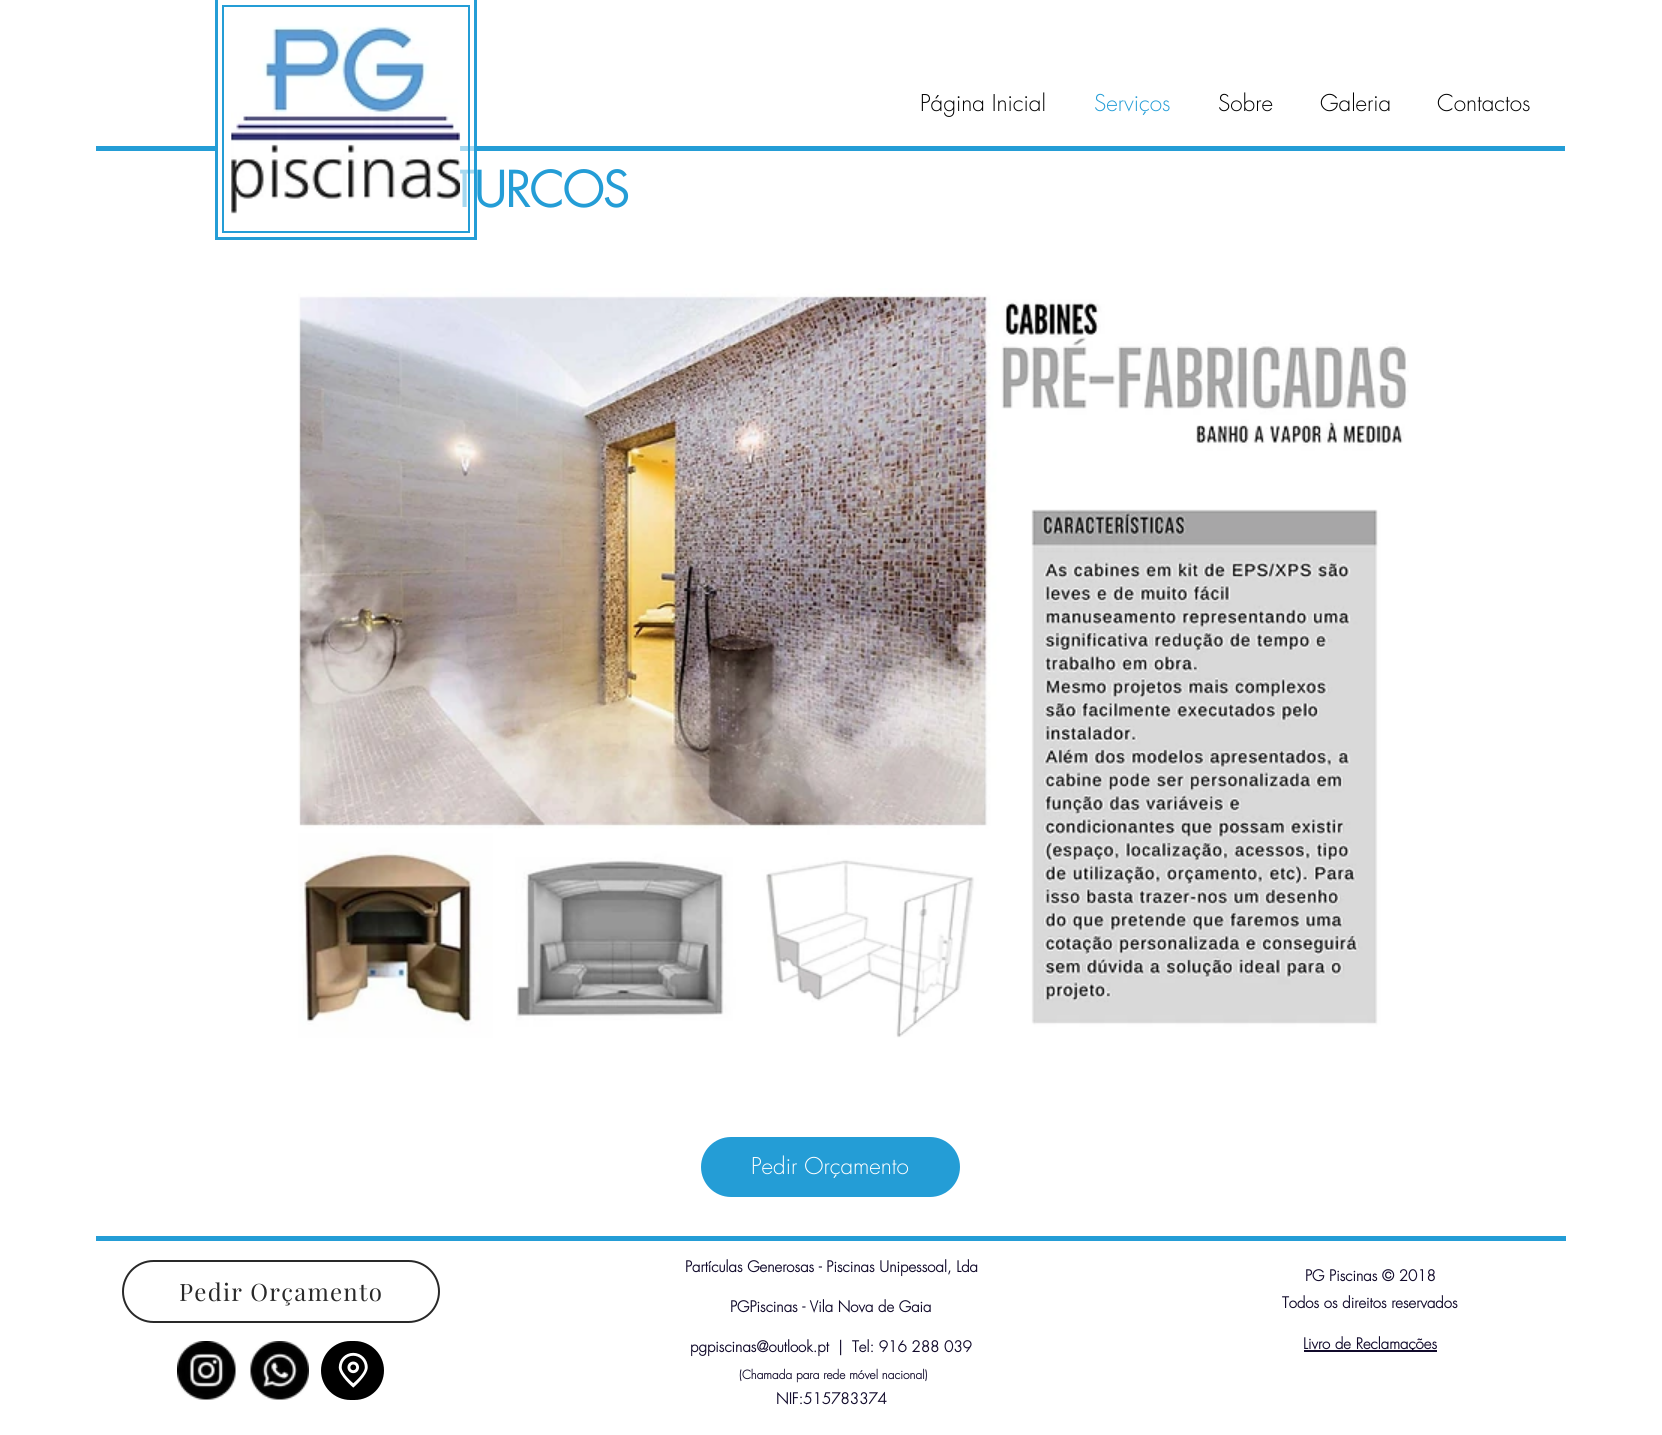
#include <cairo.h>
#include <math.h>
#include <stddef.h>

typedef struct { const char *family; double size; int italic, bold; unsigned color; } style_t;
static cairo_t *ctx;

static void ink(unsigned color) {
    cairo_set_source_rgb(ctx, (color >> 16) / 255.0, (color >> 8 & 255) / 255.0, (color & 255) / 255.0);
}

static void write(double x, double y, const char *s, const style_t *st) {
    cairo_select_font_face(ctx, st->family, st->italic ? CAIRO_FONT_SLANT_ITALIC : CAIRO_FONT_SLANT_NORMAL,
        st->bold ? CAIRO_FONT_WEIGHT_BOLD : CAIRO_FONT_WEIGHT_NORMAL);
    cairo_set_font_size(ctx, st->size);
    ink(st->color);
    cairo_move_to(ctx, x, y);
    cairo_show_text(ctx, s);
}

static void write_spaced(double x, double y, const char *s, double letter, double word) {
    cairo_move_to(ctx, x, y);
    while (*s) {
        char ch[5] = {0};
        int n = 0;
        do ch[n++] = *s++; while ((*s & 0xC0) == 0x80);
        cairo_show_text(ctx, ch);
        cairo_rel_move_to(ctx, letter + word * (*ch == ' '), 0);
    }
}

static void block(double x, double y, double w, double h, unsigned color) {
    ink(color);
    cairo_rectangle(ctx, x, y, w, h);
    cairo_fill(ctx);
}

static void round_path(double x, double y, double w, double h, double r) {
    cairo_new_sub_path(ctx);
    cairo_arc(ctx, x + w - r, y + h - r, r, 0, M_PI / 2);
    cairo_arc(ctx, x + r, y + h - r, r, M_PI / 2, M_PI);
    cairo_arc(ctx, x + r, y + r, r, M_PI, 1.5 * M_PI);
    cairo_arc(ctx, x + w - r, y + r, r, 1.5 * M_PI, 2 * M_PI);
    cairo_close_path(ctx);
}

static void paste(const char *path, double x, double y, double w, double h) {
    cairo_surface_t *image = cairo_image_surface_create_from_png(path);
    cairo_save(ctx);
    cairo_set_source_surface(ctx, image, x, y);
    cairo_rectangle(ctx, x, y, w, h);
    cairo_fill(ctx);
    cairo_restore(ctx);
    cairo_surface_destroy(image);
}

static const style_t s1 = {"futura Light", 22.5, 0, 0, 0x000000};
static const style_t s2 = {"futura Light", 22.5, 0, 0, 0x249dd6};
static const style_t s3 = {"futura Light", 22.5, 0, 0, 0xffffff};
static const style_t s4 = {"futura", 15, 0, 1, 0x110a2b};
static const style_t s5 = {"futura", 12, 0, 1, 0x110a2b};

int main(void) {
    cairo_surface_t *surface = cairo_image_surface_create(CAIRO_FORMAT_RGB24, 1662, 1435);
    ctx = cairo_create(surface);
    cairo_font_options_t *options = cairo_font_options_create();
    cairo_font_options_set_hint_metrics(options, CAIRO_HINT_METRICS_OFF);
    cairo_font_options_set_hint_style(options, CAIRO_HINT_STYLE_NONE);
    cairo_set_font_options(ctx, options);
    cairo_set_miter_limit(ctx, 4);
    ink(0xffffff);
    cairo_paint(ctx);
    block(460, 146, 1105, 5, 0x249dd6);
    cairo_select_font_face(ctx, "futura", CAIRO_FONT_SLANT_NORMAL, CAIRO_FONT_WEIGHT_NORMAL);
    cairo_set_font_size(ctx, 49.5);
    write_spaced(453, 207, "TURCOS", -2.5, 0);
    cairo_set_source_rgba(ctx, 1, 1, 1, 0.6);
    cairo_rectangle(ctx, 453, 146, 21, 61);
    cairo_fill(ctx);
    cairo_rectangle(ctx, 216.5, -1.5, 259, 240);
    ink(0x249dd6);
    cairo_set_line_width(ctx, 3);
    cairo_stroke(ctx);
    paste("pic1.png", 231, 26, 230, 188);
    cairo_rectangle(ctx, 223, 6, 246, 226);
    cairo_set_line_width(ctx, 2);
    cairo_stroke(ctx);
    write(920, 111, "Página Inicial", &s1);
    write(1094, 111, "Serviços", &s2);
    write(1218, 111, "Sobre", &s1);
    write(1320, 111, "Galeria", &s1);
    write(1437, 111, "Contactos", &s1);
    block(96, 146, 119, 5, 0x249dd6);
    paste("pic2.png", 298, 288, 1111, 750);
    round_path(701, 1137, 259, 60, 30);
    cairo_fill(ctx);
    write(751, 1174, "Pedir Orçamento", &s3);
    block(96, 1236, 1470, 5, 0x249dd6);
    round_path(123, 1261, 316, 61, 30.5);
    ink(0x292929);
    cairo_stroke(ctx);
    cairo_select_font_face(ctx, "Playfair Display", CAIRO_FONT_SLANT_NORMAL, CAIRO_FONT_WEIGHT_NORMAL);
    cairo_set_font_size(ctx, 24);
    write_spaced(179, 1301, "Pedir Orçamento", 1.25, 0);
    write(685, 1272, "Partículas Generosas - Piscinas Unipessoal, Lda", &s4);
    write(730, 1312, "PGPiscinas - Vila Nova de Gaia", &s4);
    write(690, 1352, "pgpiscinas@outlook.pt", &s4);
    write(838, 1352, "|  Tel: 916 288 039", &s4);
    write(739, 1379, "(Chamada para rede móvel nacional)", &s5);
    write(776, 1404, "NIF:515783374", &s4);
    write(1305, 1281, "PG Piscinas © 2018", &s4);
    write(1282, 1308, "Todos os direitos reservados", &s4);
    paste("pic3.png", 177, 1341, 59, 59);
    paste("pic4.png", 250, 1341, 59, 59);
    ink(0x000000);
    round_path(321, 1341, 63, 59, 29.5);
    cairo_fill(ctx);
    paste("pic5.png", 338, 1352, 30, 36);
    block(1304, 1350, 133, 2, 0x110a2b);
    write(1303, 1349, "Livro de Reclamações", &s4);
    cairo_surface_write_to_png(surface, "screenshot.png");
    cairo_font_options_destroy(options);
    cairo_destroy(ctx);
    cairo_surface_destroy(surface);
    return 0;
}
